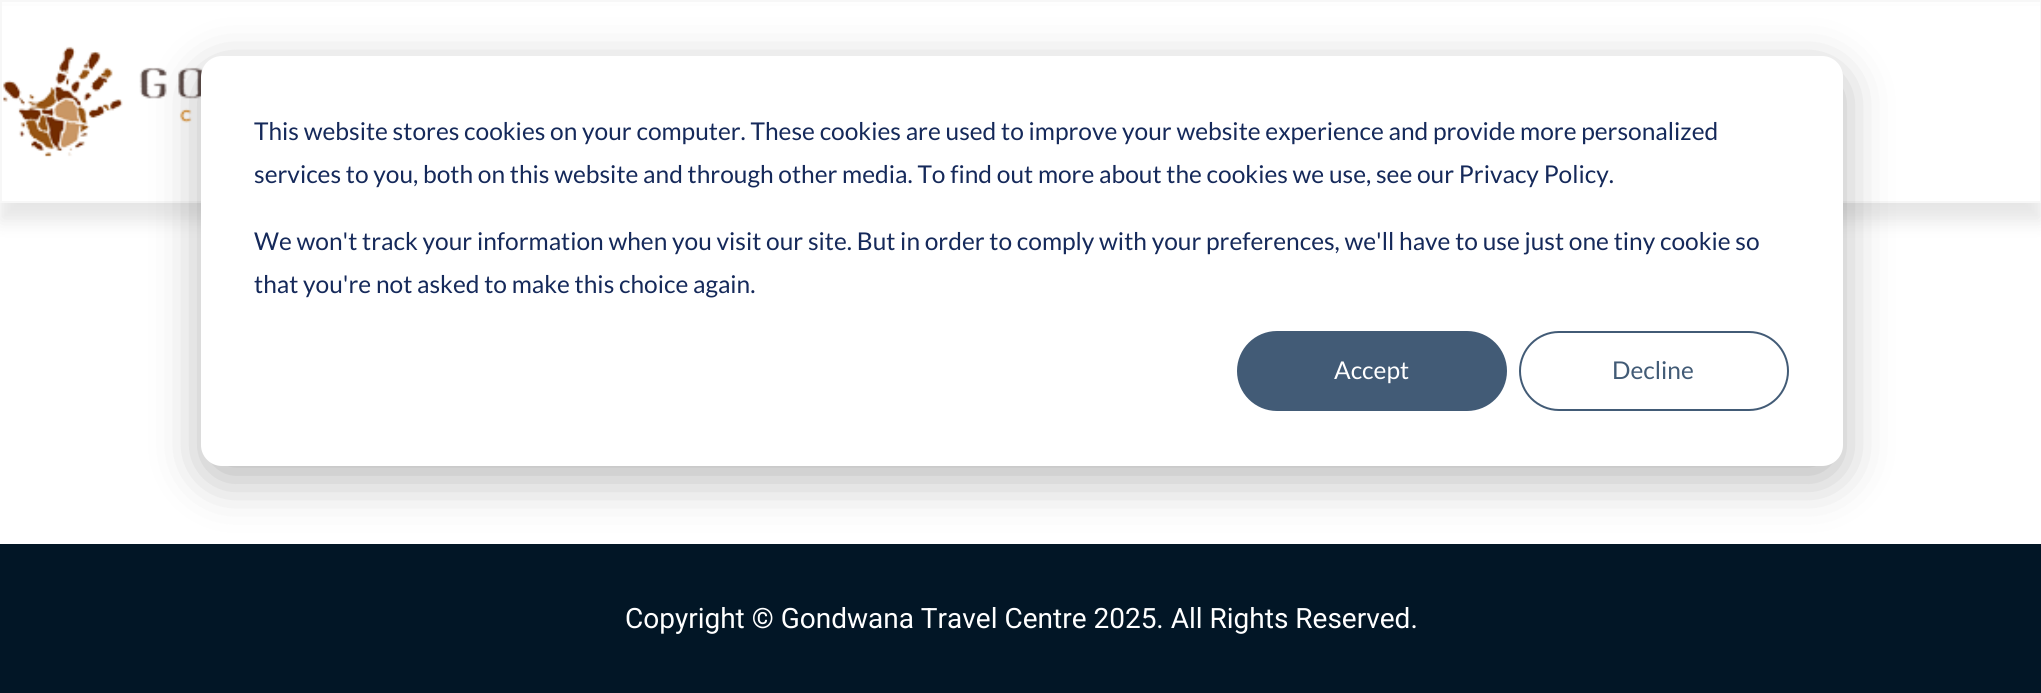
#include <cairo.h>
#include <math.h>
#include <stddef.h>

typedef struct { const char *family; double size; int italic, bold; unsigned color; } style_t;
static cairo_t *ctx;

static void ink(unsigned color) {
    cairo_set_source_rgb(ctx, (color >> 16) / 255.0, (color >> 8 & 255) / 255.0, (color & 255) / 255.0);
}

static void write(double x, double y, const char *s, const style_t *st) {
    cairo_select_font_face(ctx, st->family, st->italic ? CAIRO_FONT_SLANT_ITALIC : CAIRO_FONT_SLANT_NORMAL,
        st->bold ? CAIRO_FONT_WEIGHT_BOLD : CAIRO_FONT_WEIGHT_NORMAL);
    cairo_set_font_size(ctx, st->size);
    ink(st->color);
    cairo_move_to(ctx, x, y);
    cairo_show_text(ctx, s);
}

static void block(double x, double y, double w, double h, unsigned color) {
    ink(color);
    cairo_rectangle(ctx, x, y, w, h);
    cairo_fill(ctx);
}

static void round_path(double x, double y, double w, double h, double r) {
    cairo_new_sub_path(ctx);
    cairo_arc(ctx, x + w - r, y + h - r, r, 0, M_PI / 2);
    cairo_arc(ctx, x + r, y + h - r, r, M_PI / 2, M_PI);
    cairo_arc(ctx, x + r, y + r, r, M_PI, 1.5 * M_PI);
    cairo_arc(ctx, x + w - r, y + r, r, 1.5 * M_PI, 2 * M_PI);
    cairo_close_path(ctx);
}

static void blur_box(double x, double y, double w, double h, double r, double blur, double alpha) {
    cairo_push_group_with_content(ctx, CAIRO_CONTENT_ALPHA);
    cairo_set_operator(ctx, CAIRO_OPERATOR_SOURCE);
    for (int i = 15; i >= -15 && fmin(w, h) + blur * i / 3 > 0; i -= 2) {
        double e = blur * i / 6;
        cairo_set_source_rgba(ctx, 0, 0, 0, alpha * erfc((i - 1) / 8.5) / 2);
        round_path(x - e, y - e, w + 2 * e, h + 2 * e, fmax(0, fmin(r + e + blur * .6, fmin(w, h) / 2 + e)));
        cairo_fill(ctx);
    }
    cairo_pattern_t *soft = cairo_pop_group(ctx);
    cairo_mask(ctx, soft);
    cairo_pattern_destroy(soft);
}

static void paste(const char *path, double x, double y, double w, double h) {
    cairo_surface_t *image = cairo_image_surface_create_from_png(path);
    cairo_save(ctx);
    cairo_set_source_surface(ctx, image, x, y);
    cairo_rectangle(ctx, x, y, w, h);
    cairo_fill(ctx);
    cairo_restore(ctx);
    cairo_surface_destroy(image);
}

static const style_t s1 = {"Lato", 24.5, 0, 0, 0x15295a};
static const style_t s2 = {"Lato", 24.5, 0, 0, 0xffffff};
static const style_t s3 = {"Lato", 24.5, 0, 0, 0x425b76};
static const style_t s4 = {"Roboto", 28, 0, 0, 0xffffff};

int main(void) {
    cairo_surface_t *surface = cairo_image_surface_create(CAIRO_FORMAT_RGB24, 2041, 693);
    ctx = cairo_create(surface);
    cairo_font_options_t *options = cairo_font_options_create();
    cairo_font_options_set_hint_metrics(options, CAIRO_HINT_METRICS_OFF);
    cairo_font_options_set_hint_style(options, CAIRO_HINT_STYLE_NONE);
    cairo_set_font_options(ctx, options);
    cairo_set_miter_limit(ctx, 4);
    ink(0xffffff);
    cairo_paint(ctx);
    ink(0x000000);
    blur_box(0, 18, 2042, 203, 0, 9, 0.1);
    block(2, 6, 2038, 195, 0xffffff);
    cairo_rectangle(ctx, 1, 1, 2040, 201);
    ink(0xf7f7f7);
    cairo_stroke(ctx);
    paste("pic1.png", 3, 46, 200, 111);
    block(0, 544, 2041, 149, 0x021626);
    ink(0x000000);
    blur_box(201, 70, 1642, 410, 21, 24.5, 0.28);
    ink(0xffffff);
    round_path(201, 56, 1642, 410, 21);
    cairo_fill(ctx);
    write(254, 140, "This website stores cookies on your computer. These cookies are used to improve your website experience and provide more personalized", &s1);
    write(254, 183, "services to you, both on this website and through other media. To find out more about the cookies we use, see our Privacy Policy.", &s1);
    write(254, 250, "We won't track your information when you visit our site. But in order to comply with your preferences, we'll have to use just one tiny cookie so", &s1);
    write(254, 293, "that you're not asked to make this choice again.", &s1);
    ink(0x425b76);
    round_path(1238, 332, 268, 78, 39);
    cairo_fill_preserve(ctx);
    cairo_stroke(ctx);
    write(1334, 379, "Accept", &s2);
    round_path(1520, 332, 268, 78, 39);
    ink(0x425b76);
    cairo_stroke(ctx);
    write(1612, 379, "Decline", &s3);
    write(625, 628, "Copyright © Gondwana Travel Centre 2025. All Rights Reserved.", &s4);
    cairo_surface_write_to_png(surface, "screenshot.png");
    cairo_font_options_destroy(options);
    cairo_destroy(ctx);
    cairo_surface_destroy(surface);
    return 0;
}
